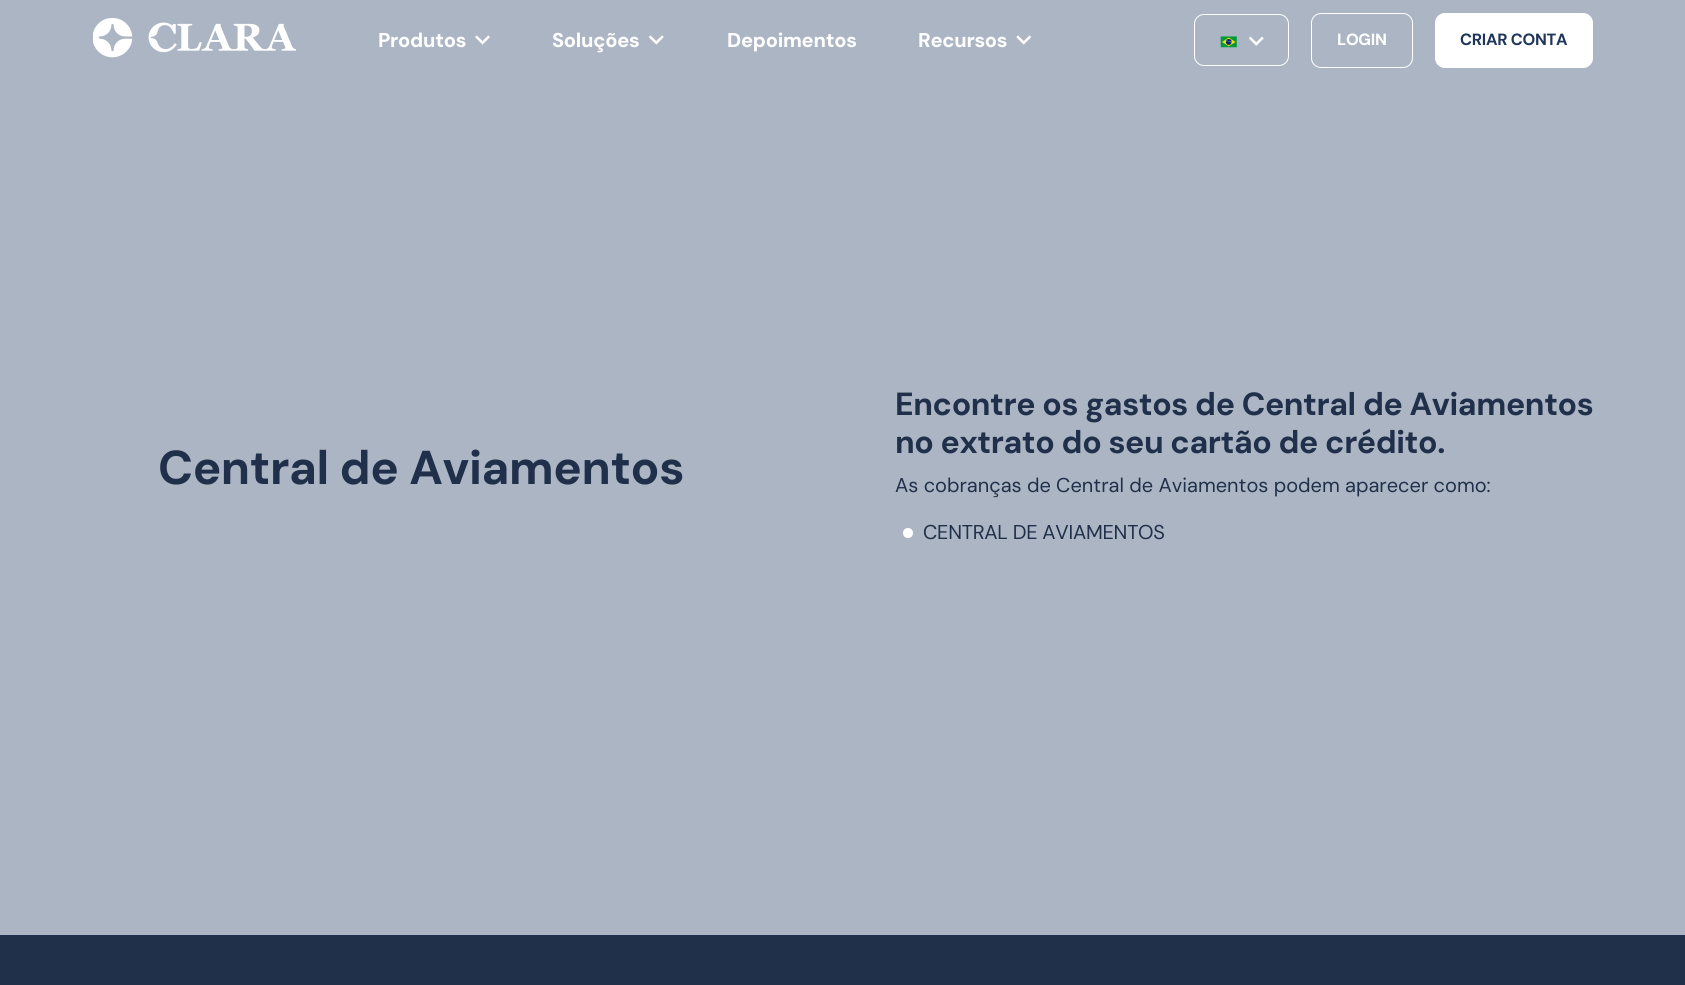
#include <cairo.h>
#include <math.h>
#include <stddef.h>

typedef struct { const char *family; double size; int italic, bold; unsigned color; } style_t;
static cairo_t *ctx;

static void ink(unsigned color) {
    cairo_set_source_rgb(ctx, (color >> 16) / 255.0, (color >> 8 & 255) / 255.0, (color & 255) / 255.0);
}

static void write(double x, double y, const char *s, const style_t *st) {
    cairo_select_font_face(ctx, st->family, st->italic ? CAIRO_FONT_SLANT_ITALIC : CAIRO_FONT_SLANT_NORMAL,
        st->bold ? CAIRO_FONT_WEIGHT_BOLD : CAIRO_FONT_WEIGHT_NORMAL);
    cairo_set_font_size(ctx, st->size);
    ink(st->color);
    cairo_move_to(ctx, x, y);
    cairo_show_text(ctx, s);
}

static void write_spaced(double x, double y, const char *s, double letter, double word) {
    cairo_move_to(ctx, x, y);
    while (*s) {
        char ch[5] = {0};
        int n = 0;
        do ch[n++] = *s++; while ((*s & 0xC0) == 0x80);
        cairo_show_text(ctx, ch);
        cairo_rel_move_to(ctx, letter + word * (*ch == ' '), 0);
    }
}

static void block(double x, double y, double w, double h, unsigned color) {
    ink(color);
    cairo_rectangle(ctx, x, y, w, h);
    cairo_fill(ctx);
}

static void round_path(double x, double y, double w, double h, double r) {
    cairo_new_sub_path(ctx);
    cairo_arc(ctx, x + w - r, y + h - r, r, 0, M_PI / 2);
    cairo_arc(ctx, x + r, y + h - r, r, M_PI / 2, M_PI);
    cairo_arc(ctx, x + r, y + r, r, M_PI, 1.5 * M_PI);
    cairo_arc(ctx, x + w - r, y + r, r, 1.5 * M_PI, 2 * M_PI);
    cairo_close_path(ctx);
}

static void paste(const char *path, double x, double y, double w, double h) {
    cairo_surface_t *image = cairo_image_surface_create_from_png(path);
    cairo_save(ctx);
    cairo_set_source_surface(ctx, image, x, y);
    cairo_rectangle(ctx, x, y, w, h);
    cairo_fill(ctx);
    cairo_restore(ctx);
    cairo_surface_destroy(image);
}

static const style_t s1 = {"DM Sans", 20, 0, 0, 0x21304a};

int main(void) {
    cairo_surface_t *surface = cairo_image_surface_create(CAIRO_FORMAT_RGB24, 1685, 985);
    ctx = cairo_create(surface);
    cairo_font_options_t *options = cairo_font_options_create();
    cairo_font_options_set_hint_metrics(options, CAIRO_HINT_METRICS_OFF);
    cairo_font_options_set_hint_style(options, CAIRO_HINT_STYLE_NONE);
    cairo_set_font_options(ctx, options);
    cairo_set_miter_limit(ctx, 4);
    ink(0xabb5c4);
    cairo_paint(ctx);
    paste("pic1.png", 93, 18, 203, 40);
    cairo_select_font_face(ctx, "DM Sans ExtraBold", CAIRO_FONT_SLANT_NORMAL, CAIRO_FONT_WEIGHT_NORMAL);
    cairo_set_font_size(ctx, 20);
    ink(0xffffff);
    write_spaced(378, 47, "Produtos", -0.25, 0);
    paste("pic2.png", 475, 35, 15, 10);
    write_spaced(552, 47, "Soluções", -0.25, 0);
    paste("pic3.png", 649, 35, 15, 10);
    write_spaced(727, 47, "Depoimentos", -0.25, 0);
    write_spaced(918, 47, "Recursos", -0.25, 0);
    paste("pic4.png", 1016, 35, 15, 10);
    round_path(1194.5, 14.5, 94, 51, 9.5);
    cairo_set_line_width(ctx, 1);
    cairo_stroke(ctx);
    paste("pic5.png", 1220, 36, 17, 12);
    paste("pic6.png", 1249, 36, 15, 10);
    round_path(1311.5, 13.5, 101, 54, 9.5);
    cairo_stroke(ctx);
    cairo_set_font_size(ctx, 16.25);
    write_spaced(1337, 45, "LOGIN", -0.25, 0);
    round_path(1435.5, 13.5, 157, 54, 9.5);
    cairo_fill_preserve(ctx);
    cairo_stroke(ctx);
    cairo_select_font_face(ctx, "DM Sans", CAIRO_FONT_SLANT_NORMAL, CAIRO_FONT_WEIGHT_BOLD);
    ink(0x1f3559);
    write_spaced(1460, 45, "CRIAR CONTA", -0.25, 0);
    cairo_set_font_size(ctx, 47.5);
    ink(0x21304a);
    write_spaced(158, 484, "Central de Aviamentos", -0.4, 0);
    cairo_set_font_size(ctx, 32);
    write_spaced(895, 415, "Encontre os gastos de Central de Aviamentos", -0.4, 0);
    write_spaced(895, 453, "no extrato do seu cartão de crédito.", -0.4, 0);
    write(895, 492, "As cobranças de Central de Aviamentos podem aparecer como:", &s1);
    ink(0xffffff);
    cairo_new_path(ctx);
    cairo_arc(ctx, 908, 533, 5, 0, 2 * M_PI);
    cairo_fill(ctx);
    ink(0x21304a);
    write_spaced(923, 539, "CENTRAL DE AVIAMENTOS", -0.25, 0);
    block(0, 935, 1685, 50, 0x21304a);
    cairo_surface_write_to_png(surface, "screenshot.png");
    cairo_font_options_destroy(options);
    cairo_destroy(ctx);
    cairo_surface_destroy(surface);
    return 0;
}
